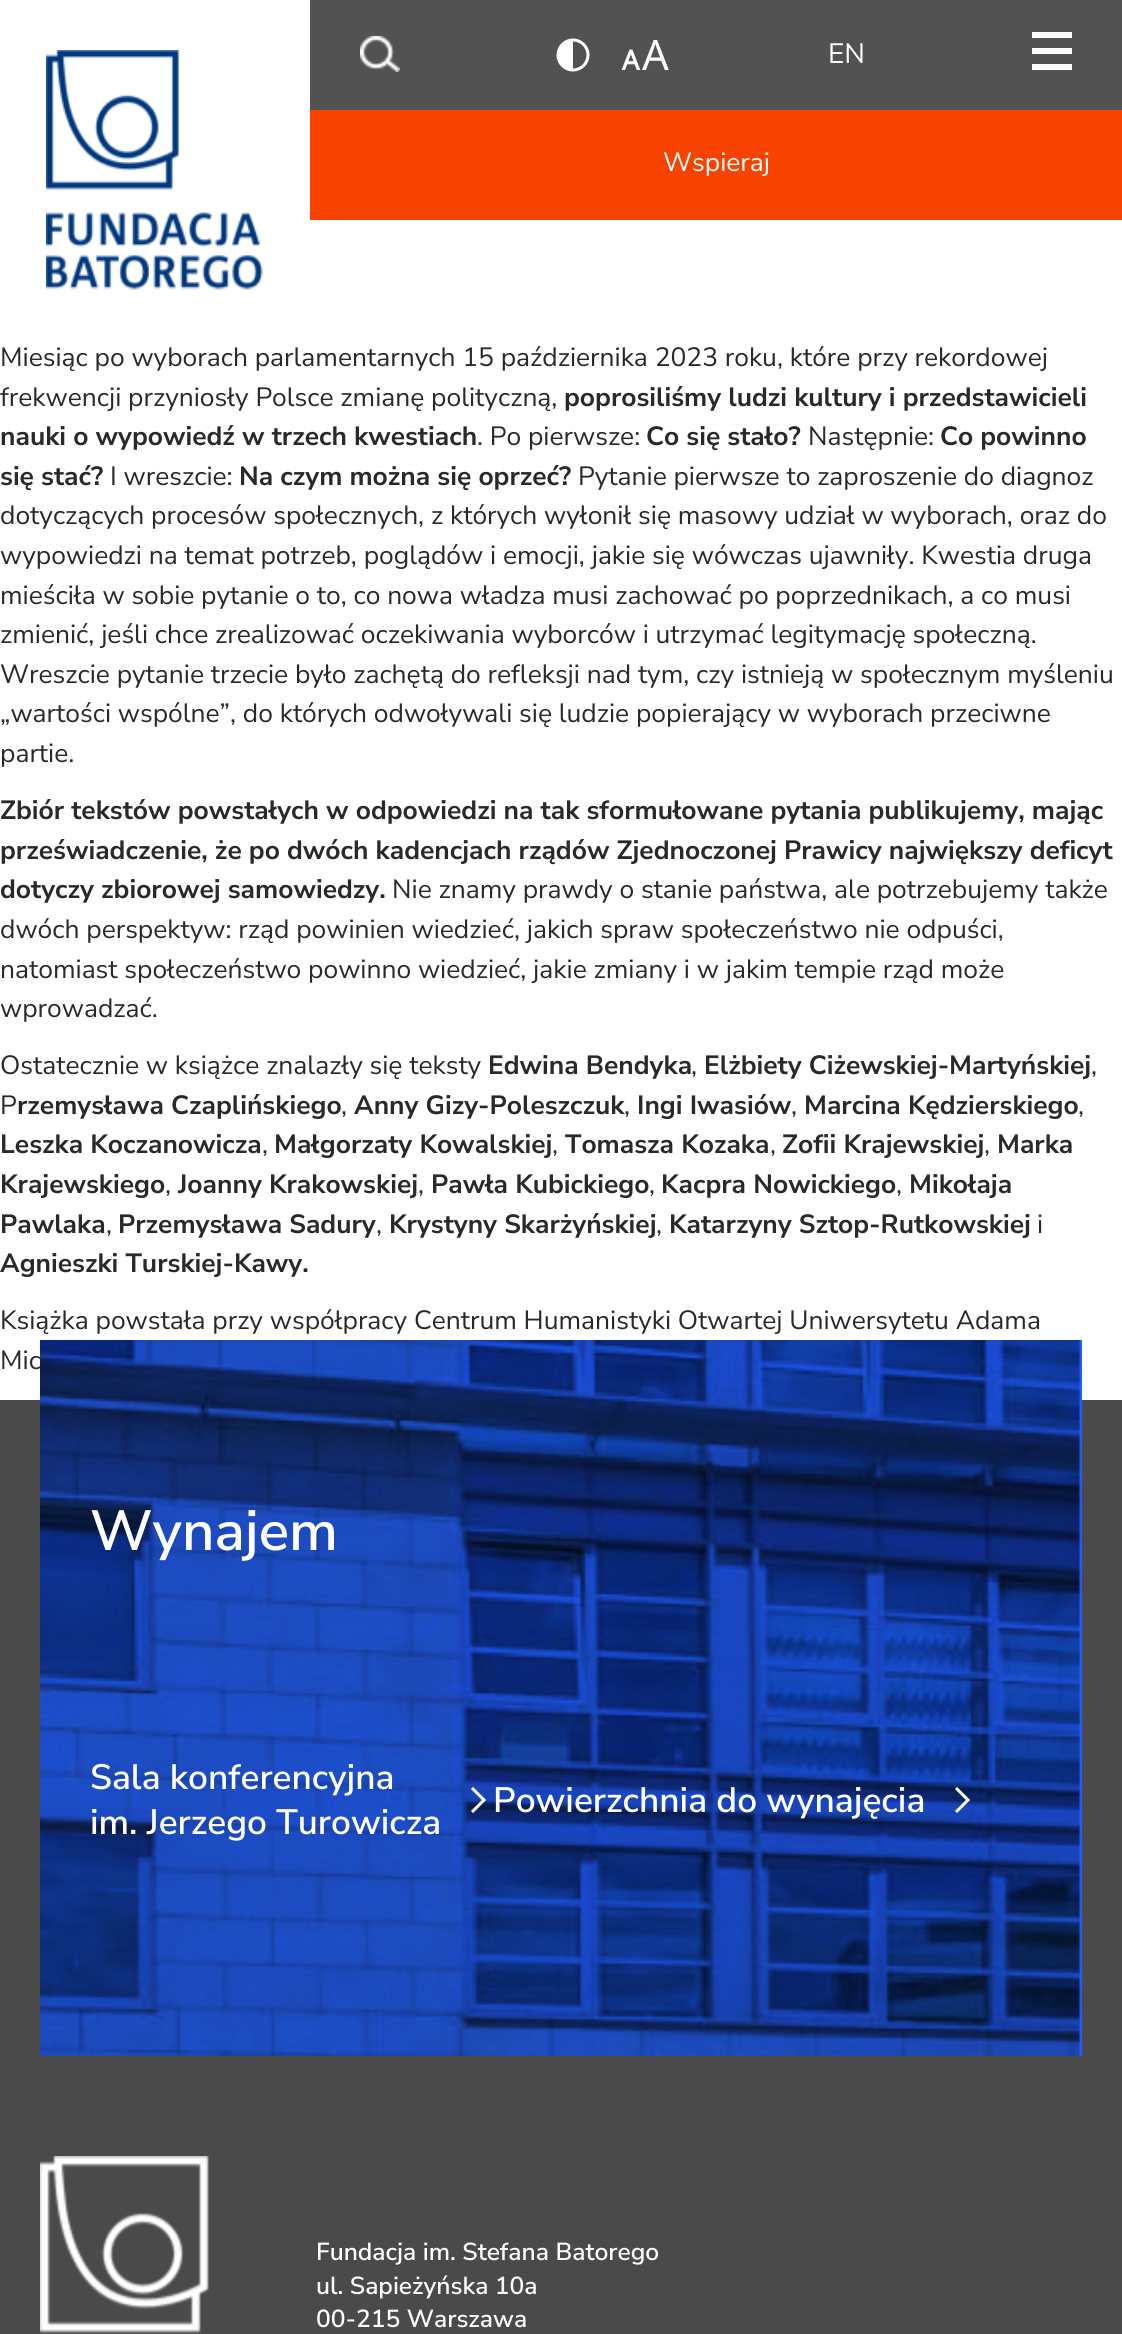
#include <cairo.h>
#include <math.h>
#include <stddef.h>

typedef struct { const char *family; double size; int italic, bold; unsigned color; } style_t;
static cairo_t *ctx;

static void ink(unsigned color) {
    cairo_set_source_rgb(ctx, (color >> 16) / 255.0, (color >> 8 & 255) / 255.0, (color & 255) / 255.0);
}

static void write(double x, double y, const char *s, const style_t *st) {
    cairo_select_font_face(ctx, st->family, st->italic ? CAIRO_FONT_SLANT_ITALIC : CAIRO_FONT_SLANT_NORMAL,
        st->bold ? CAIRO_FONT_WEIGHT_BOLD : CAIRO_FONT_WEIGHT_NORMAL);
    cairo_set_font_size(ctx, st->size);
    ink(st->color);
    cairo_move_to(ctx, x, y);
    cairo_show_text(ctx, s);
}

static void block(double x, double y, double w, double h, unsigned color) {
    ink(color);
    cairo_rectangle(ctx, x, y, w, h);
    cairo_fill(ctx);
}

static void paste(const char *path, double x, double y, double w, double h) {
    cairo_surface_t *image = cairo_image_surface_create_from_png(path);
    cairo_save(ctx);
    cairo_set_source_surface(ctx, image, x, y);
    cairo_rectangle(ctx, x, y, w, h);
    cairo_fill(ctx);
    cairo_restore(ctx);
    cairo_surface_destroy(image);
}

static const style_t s1 = {"Nunito Sans", 28, 0, 0, 0xffffff};
static const style_t s2 = {"Nunito Sans", 26.4, 0, 0, 0xffffff};
static const style_t s3 = {"Nunito Sans", 26.4, 0, 0, 0x292929};
static const style_t s4 = {"Nunito Sans", 26.4, 0, 1, 0x292929};
static const style_t s5 = {"Nunito Sans SemiBold", 56.5, 0, 0, 0xffffff};
static const style_t s6 = {"Nunito Sans SemiBold", 35.25, 0, 0, 0xffffff};
static const style_t s7 = {"Nunito Sans SemiBold", 24.6, 0, 0, 0xffffff};

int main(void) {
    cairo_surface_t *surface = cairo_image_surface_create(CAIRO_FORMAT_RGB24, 1122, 2334);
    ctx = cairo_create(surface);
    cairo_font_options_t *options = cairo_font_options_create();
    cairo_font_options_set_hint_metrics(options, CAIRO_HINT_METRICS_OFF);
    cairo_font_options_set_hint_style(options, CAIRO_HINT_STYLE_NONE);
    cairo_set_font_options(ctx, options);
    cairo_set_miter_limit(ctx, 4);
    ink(0xffffff);
    cairo_paint(ctx);
    paste("pic1.png", 46, 50, 218, 240);
    block(310, 0, 812, 110, 0x525252);
    paste("pic2.png", 360, 36, 40, 36);
    cairo_arc(ctx, 573, 55, 15, 0, 2 * M_PI);
    ink(0xffffff);
    cairo_set_line_width(ctx, 3);
    cairo_stroke(ctx);
    cairo_set_fill_rule(ctx, CAIRO_FILL_RULE_EVEN_ODD);
    cairo_new_path(ctx);
    cairo_move_to(ctx, 573, 70);
    cairo_line_to(ctx, 573, 40);
    cairo_curve_to(ctx, 564.5, 40, 558, 46.5, 558, 55);
    cairo_curve_to(ctx, 558, 63.5, 564.5, 70, 573, 70);
    cairo_close_path(ctx);
    cairo_fill(ctx);
    paste("pic3.png", 621, 40, 48, 30);
    write(828, 63, "EN", &s1);
    block(1032, 48, 40, 6, 0xffffff);
    block(1032, 32, 40, 6, 0xffffff);
    block(1032, 64, 40, 6, 0xffffff);
    block(310, 110, 812, 110, 0xf74200);
    write(663, 171, "Wspieraj", &s2);
    write(0, 366, "Miesiąc po wyborach parlamentarnych 15 października 2023 roku, które przy rekordowej", &s3);
    write(0, 406, "frekwencji przyniosły Polsce zmianę polityczną,", &s3);
    write(564, 406, "poprosiliśmy ludzi kultury i przedstawicieli", &s4);
    write(0, 445, "nauki o wypowiedź w trzech kwestiach", &s4);
    write(477, 445, ". Po pierwsze:", &s3);
    write(646, 445, "Co się stało?", &s4);
    write(808, 445, "Następnie:", &s3);
    write(940, 445, "Co powinno", &s4);
    write(0, 485, "się stać?", &s4);
    write(110, 485, "I wreszcie:", &s3);
    write(239, 485, "Na czym można się oprzeć?", &s4);
    write(578, 485, "Pytanie pierwsze to zaproszenie do diagnoz", &s3);
    write(0, 524, "dotyczących procesów społecznych, z których wyłonił się masowy udział w wyborach, oraz do", &s3);
    write(0, 564, "wypowiedzi na temat potrzeb, poglądów i emocji, jakie się wówczas ujawniły. Kwestia druga", &s3);
    write(0, 604, "mieściła w sobie pytanie o to, co nowa władza musi zachować po poprzednikach, a co musi", &s3);
    write(0, 643, "zmienić, jeśli chce zrealizować oczekiwania wyborców i utrzymać legitymację społeczną.", &s3);
    write(0, 683, "Wreszcie pytanie trzecie było zachętą do refleksji nad tym, czy istnieją w społecznym myśleniu", &s3);
    write(0, 722, "„wartości wspólne”, do których odwoływali się ludzie popierający w wyborach przeciwne", &s3);
    write(0, 762, "partie.", &s3);
    write(0, 819, "Zbiór tekstów powstałych w odpowiedzi na tak sformułowane pytania publikujemy, mając", &s4);
    write(0, 859, "przeświadczenie, że po dwóch kadencjach rządów Zjednoczonej Prawicy największy deficyt", &s4);
    write(0, 898, "dotyczy zbiorowej samowiedzy.", &s4);
    write(392, 898, "Nie znamy prawdy o stanie państwa, ale potrzebujemy także", &s3);
    write(0, 938, "dwóch perspektyw: rząd powinien wiedzieć, jakich spraw społeczeństwo nie odpuści,", &s3);
    write(0, 978, "natomiast społeczeństwo powinno wiedzieć, jakie zmiany i w jakim tempie rząd może", &s3);
    write(0, 1017, "wprowadzać.", &s3);
    write(0, 1074, "Ostatecznie w książce znalazły się teksty", &s3);
    write(488, 1074, "Edwina Bendyka", &s4);
    write(691, 1074, ",", &s3);
    write(704, 1074, "Elżbiety Ciżewskiej-Martyńskiej", &s4);
    write(1091, 1074, ",", &s3);
    write(0, 1114, "P", &s3);
    write(17, 1114, "rzemysława Czaplińskiego", &s4);
    write(341, 1114, ",", &s3);
    write(354, 1114, "Anny Gizy-Poleszczuk", &s4);
    write(624, 1114, ",", &s3);
    write(637, 1114, "Ingi Iwasiów", &s4);
    write(791, 1114, ",", &s3);
    write(804, 1114, "Marcina Kędzierskiego", &s4);
    write(1078, 1114, ",", &s3);
    write(0, 1153, "Leszka Koczanowicza", &s4);
    write(262, 1153, ",", &s3);
    write(274, 1153, "Małgorzaty Kowalskiej", &s4);
    write(552, 1153, ",", &s3);
    write(565, 1153, "Tomasza Kozaka", &s4);
    write(770, 1153, ",", &s3);
    write(782, 1153, "Zofii Krajewskiej", &s4);
    write(984, 1153, ",", &s3);
    write(997, 1153, "Marka", &s4);
    write(0, 1193, "Krajewskiego", &s4);
    write(165, 1193, ",", &s3);
    write(178, 1193, "Joanny Krakowskiej", &s4);
    write(418, 1193, ",", &s3);
    write(431, 1193, "Pawła Kubickiego", &s4);
    write(649, 1193, ",", &s3);
    write(661, 1193, "Kacpra Nowickiego", &s4);
    write(896, 1193, ",", &s3);
    write(909, 1193, "Mikołaja", &s4);
    write(0, 1233, "Pawlaka", &s4);
    write(106, 1233, ",", &s3);
    write(118, 1233, "Przemysława Sadury", &s4);
    write(376, 1233, ",", &s3);
    write(389, 1233, "Krystyny Skarżyńskiej", &s4);
    write(656, 1233, ",", &s3);
    write(669, 1233, "Katarzyny Sztop-Rutkowskiej", &s4);
    write(1037, 1233, "i", &s3);
    write(0, 1272, "Agnieszki Turskiej-Kawy.", &s4);
    write(0, 1329, "Książka powstała przy współpracy Centrum Humanistyki Otwartej Uniwersytetu Adama", &s3);
    write(0, 1369, "Mic", &s3);
    block(0, 1400, 1122, 934, 0x4a4a4a);
    paste("pic4.png", 40, 1340, 1042, 716);
    write(90, 1550, "Wynajem", &s5);
    write(90, 1789, "Sala konferencyjna", &s6);
    write(90, 1834, "im. Jerzego Turowicza", &s6);
    cairo_new_path(ctx);
    cairo_move_to(ctx, 472, 1812);
    cairo_line_to(ctx, 484, 1800);
    cairo_line_to(ctx, 472, 1788);
    cairo_stroke(ctx);
    write(493, 1812, "Powierzchnia do wynajęcia", &s6);
    cairo_new_path(ctx);
    cairo_move_to(ctx, 956, 1812);
    cairo_line_to(ctx, 968, 1800);
    cairo_line_to(ctx, 956, 1788);
    cairo_stroke(ctx);
    paste("pic5.png", 40, 2156, 170, 178);
    write(316, 2260, "Fundacja im. Stefana Batorego", &s7);
    write(316, 2294, "ul. Sapieżyńska 10a", &s7);
    write(316, 2327, "00-215 Warszawa", &s7);
    cairo_surface_write_to_png(surface, "screenshot.png");
    cairo_font_options_destroy(options);
    cairo_destroy(ctx);
    cairo_surface_destroy(surface);
    return 0;
}
